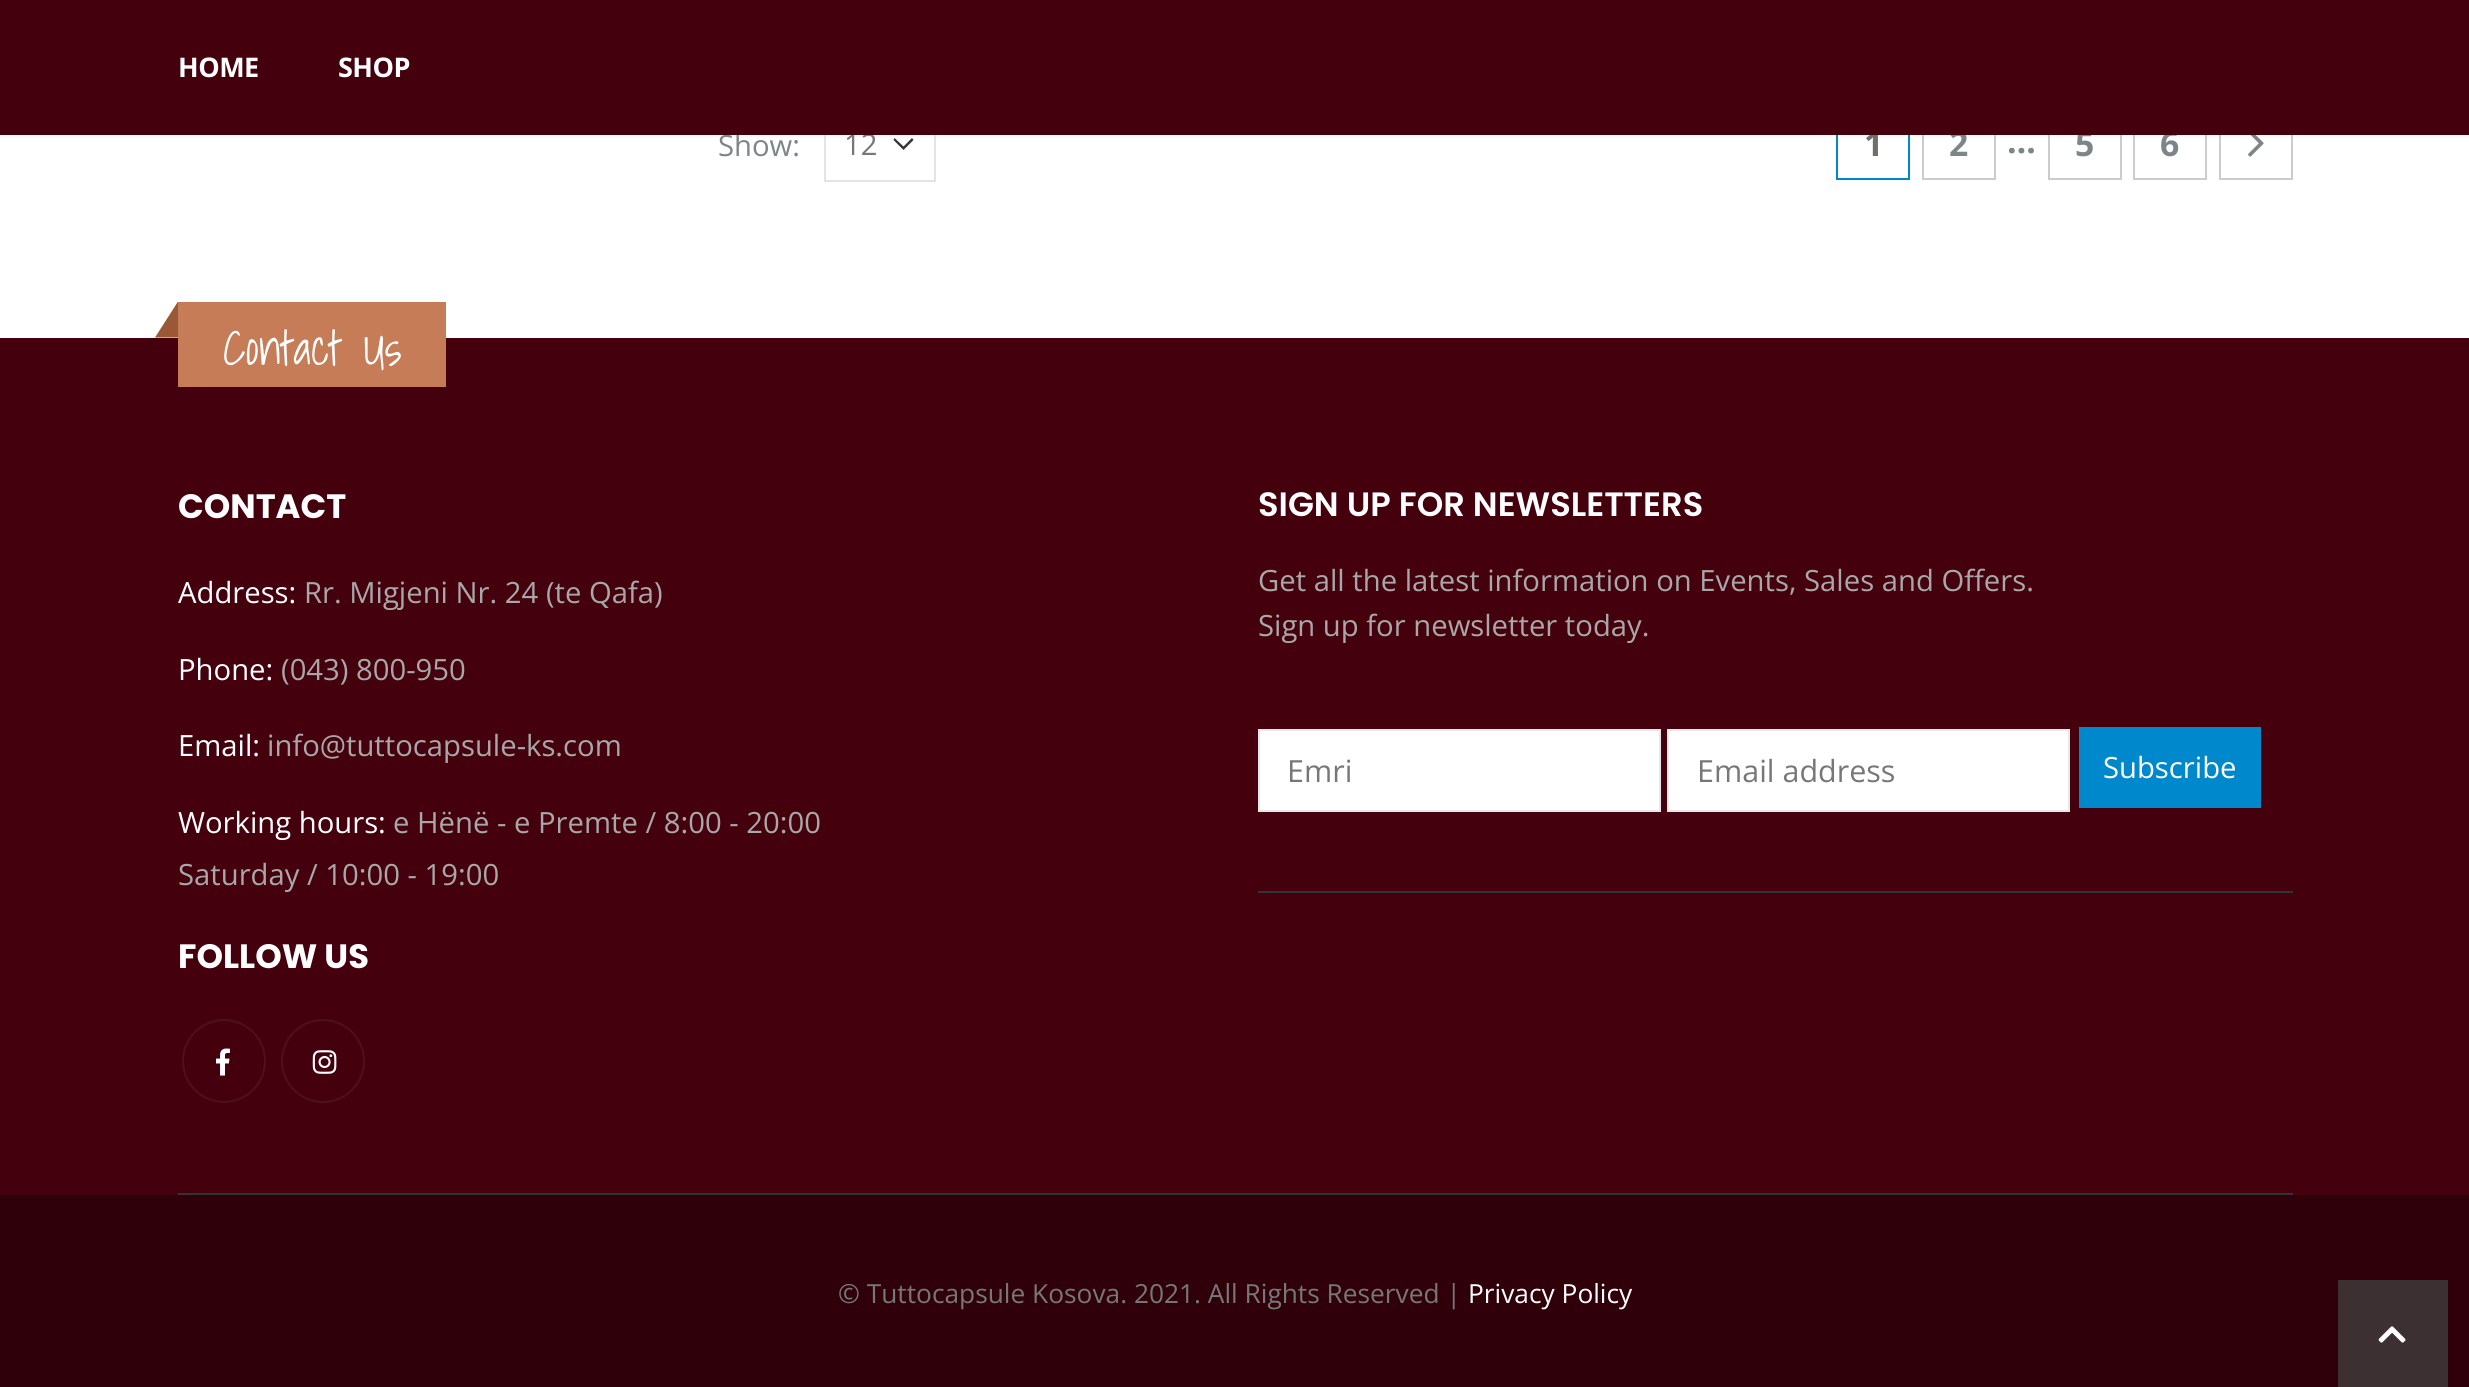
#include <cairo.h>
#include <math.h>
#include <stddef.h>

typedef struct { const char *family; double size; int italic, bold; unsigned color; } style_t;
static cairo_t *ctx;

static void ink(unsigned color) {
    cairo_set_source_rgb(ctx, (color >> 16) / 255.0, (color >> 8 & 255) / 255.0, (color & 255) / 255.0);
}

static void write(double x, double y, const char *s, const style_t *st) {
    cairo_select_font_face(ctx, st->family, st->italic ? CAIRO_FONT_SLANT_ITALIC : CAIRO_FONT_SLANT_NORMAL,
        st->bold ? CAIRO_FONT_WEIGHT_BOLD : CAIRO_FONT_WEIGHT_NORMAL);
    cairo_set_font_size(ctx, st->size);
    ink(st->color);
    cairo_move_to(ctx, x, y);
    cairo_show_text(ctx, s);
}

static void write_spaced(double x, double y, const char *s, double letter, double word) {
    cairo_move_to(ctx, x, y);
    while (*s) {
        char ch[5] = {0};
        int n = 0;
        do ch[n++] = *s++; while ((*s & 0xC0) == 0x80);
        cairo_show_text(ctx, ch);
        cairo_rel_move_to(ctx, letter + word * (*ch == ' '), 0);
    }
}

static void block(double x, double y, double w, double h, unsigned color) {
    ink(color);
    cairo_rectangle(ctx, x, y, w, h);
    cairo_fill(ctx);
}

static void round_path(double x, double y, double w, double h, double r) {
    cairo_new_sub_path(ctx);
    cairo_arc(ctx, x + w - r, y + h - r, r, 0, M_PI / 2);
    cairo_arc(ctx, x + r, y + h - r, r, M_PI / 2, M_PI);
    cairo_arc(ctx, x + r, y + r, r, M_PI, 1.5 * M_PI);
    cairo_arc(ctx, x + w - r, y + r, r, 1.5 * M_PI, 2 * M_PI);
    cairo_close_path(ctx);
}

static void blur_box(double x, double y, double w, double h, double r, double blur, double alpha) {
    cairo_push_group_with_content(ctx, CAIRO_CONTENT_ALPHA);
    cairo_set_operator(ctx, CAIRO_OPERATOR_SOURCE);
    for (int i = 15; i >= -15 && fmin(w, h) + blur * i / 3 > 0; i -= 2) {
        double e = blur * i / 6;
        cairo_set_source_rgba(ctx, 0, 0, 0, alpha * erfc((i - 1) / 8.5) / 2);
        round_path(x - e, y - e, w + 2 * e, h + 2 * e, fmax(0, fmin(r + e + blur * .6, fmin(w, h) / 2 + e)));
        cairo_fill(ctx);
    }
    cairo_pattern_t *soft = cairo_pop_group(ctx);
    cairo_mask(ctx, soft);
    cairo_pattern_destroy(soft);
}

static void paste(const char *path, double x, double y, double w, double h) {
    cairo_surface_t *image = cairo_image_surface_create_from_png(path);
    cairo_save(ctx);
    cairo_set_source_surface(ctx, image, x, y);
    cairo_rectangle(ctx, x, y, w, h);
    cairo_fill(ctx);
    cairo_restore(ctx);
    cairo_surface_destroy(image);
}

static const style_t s1 = {"Open Sans", 29.25, 0, 0, 0x7b858a};
static const style_t s2 = {"Open Sans", 29.25, 0, 0, 0x777777};
static const style_t s3 = {"Open Sans", 33.75, 0, 1, 0x706f6c};
static const style_t s4 = {"Open Sans", 33.75, 0, 1, 0x7b858a};
static const style_t s5 = {"Shadows Into Light Light", 47, 0, 0, 0xffffff};
static const style_t s6 = {"Poppins", 33.75, 0, 1, 0xffffff};
static const style_t s7 = {"Open Sans", 29.25, 0, 0, 0xffffff};
static const style_t s8 = {"Open Sans", 29.25, 0, 0, 0xa8a8a8};
static const style_t s9 = {"Poppins SemiBold", 33.75, 0, 0, 0xffffff};
static const style_t s10 = {"Open Sans", 30.5, 0, 0, 0x777777};
static const style_t s11 = {"Open Sans", 26.3, 0, 0, 0x777777};
static const style_t s12 = {"Open Sans", 26.3, 0, 0, 0xffffff};

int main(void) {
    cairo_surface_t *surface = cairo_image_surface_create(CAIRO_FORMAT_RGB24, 2469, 1387);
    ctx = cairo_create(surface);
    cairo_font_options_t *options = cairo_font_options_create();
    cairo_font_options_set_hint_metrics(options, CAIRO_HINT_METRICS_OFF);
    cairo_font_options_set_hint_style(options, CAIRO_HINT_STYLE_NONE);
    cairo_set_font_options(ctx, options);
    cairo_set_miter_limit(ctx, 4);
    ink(0xffffff);
    cairo_paint(ctx);
    ink(0x333333);
    cairo_set_fill_rule(ctx, CAIRO_FILL_RULE_EVEN_ODD);
    cairo_new_path(ctx);
    cairo_move_to(ctx, 903.5, 150);
    cairo_line_to(ctx, 913.5, 140);
    cairo_line_to(ctx, 912, 138);
    cairo_line_to(ctx, 903.5, 146.5);
    cairo_line_to(ctx, 894.5, 138);
    cairo_line_to(ctx, 893.5, 140);
    cairo_close_path(ctx);
    cairo_fill(ctx);
    cairo_rectangle(ctx, 825, 107, 110, 74);
    ink(0xe4e4e4);
    cairo_stroke(ctx);
    cairo_rectangle(ctx, 1837, 107, 72, 72);
    ink(0x0088cc);
    cairo_stroke(ctx);
    cairo_rectangle(ctx, 1923, 107, 72, 72);
    ink(0xcccccc);
    cairo_stroke(ctx);
    cairo_rectangle(ctx, 2049, 107, 72, 72);
    cairo_stroke(ctx);
    cairo_rectangle(ctx, 2134, 107, 72, 72);
    cairo_stroke(ctx);
    cairo_rectangle(ctx, 2220, 107, 72, 72);
    cairo_stroke(ctx);
    paste("pic1.png", 2248, 135, 16, 22);
    ink(0x000000);
    blur_box(0, 0, 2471, 135, 0, 3.5, 0.06);
    write(718, 156, "Show:", &s1);
    write(844, 155, "12", &s2);
    write(1864, 156, "1", &s3);
    write(1949, 156, "2", &s4);
    write(2075, 156, "5", &s4);
    write(2160, 156, "6", &s4);
    block(0, 0, 2469, 135, 0x45000e);
    cairo_set_font_size(ctx, 27);
    ink(0xffffff);
    write_spaced(178, 77, "HOME", -0.5, 0);
    write_spaced(338, 77, "SHOP", -0.5, 0);
    write(2007, 153, "…", &s4);
    block(0, 338, 2469, 857, 0x45000e);
    block(178, 302, 268, 85, 0xc57c57);
    ink(0x9b5836);
    cairo_set_fill_rule(ctx, CAIRO_FILL_RULE_WINDING);
    cairo_new_path(ctx);
    cairo_move_to(ctx, 178, 301.5);
    cairo_line_to(ctx, 178, 337.5);
    cairo_line_to(ctx, 155, 337.5);
    cairo_close_path(ctx);
    cairo_fill(ctx);
    write(223, 365, "Contact Us", &s5);
    write(178, 518, "CONTACT", &s6);
    write(178, 603, "Address:", &s7);
    write(304, 603, "Rr. Migjeni Nr. 24 (te Qafa)", &s8);
    write(178, 680, "Phone:", &s7);
    write(281, 680, "(043) 800-950", &s8);
    write(178, 756, "Email:", &s7);
    write(267, 756, "info@tuttocapsule-ks.com", &s8);
    write(178, 833, "Working hours:", &s7);
    write(393, 833, "e Hënë - e Premte / 8:00 - 20:00", &s8);
    write(178, 885, "Saturday / 10:00 - 19:00", &s8);
    write(178, 968, "FOLLOW US", &s6);
    cairo_new_path(ctx);
    cairo_arc(ctx, 224, 1061, 41, 0, 2 * M_PI);
    ink(0x500f1c);
    cairo_stroke(ctx);
    paste("pic2.png", 216, 1048, 14, 28);
    cairo_arc(ctx, 323, 1061, 41, 0, 2 * M_PI);
    cairo_stroke(ctx);
    paste("pic3.png", 312, 1050, 25, 24);
    write(1258, 516, "SIGN UP FOR NEWSLETTERS", &s9);
    write(1258, 591, "Get all the latest information on Events, Sales and Offers.", &s8);
    write(1258, 636, "Sign up for newsletter today.", &s8);
    ink(0xffffff);
    cairo_rectangle(ctx, 1259, 730, 401, 81);
    cairo_fill_preserve(ctx);
    ink(0xe8e8e8);
    cairo_stroke(ctx);
    write(1287, 782, "Emri", &s10);
    ink(0xffffff);
    cairo_rectangle(ctx, 1668, 730, 401, 81);
    cairo_fill_preserve(ctx);
    ink(0xe8e8e8);
    cairo_stroke(ctx);
    write(1697, 782, "Email address", &s10);
    block(2079, 727, 182, 81, 0x0088cc);
    write(2103, 778, "Subscribe", &s7);
    block(1258, 891, 1035, 2, 0x313438);
    block(178, 1193, 2115, 2, 0x313438);
    block(0, 1195, 2469, 192, 0x30000a);
    write(838, 1303, "© Tuttocapsule Kosova. 2021. All Rights Reserved |", &s11);
    write(1468, 1303, "Privacy Policy", &s12);
    block(2338, 1280, 110, 107, 0x3c3033);
    paste("pic4.png", 2378, 1326, 28, 17);
    cairo_surface_write_to_png(surface, "screenshot.png");
    cairo_font_options_destroy(options);
    cairo_destroy(ctx);
    cairo_surface_destroy(surface);
    return 0;
}
